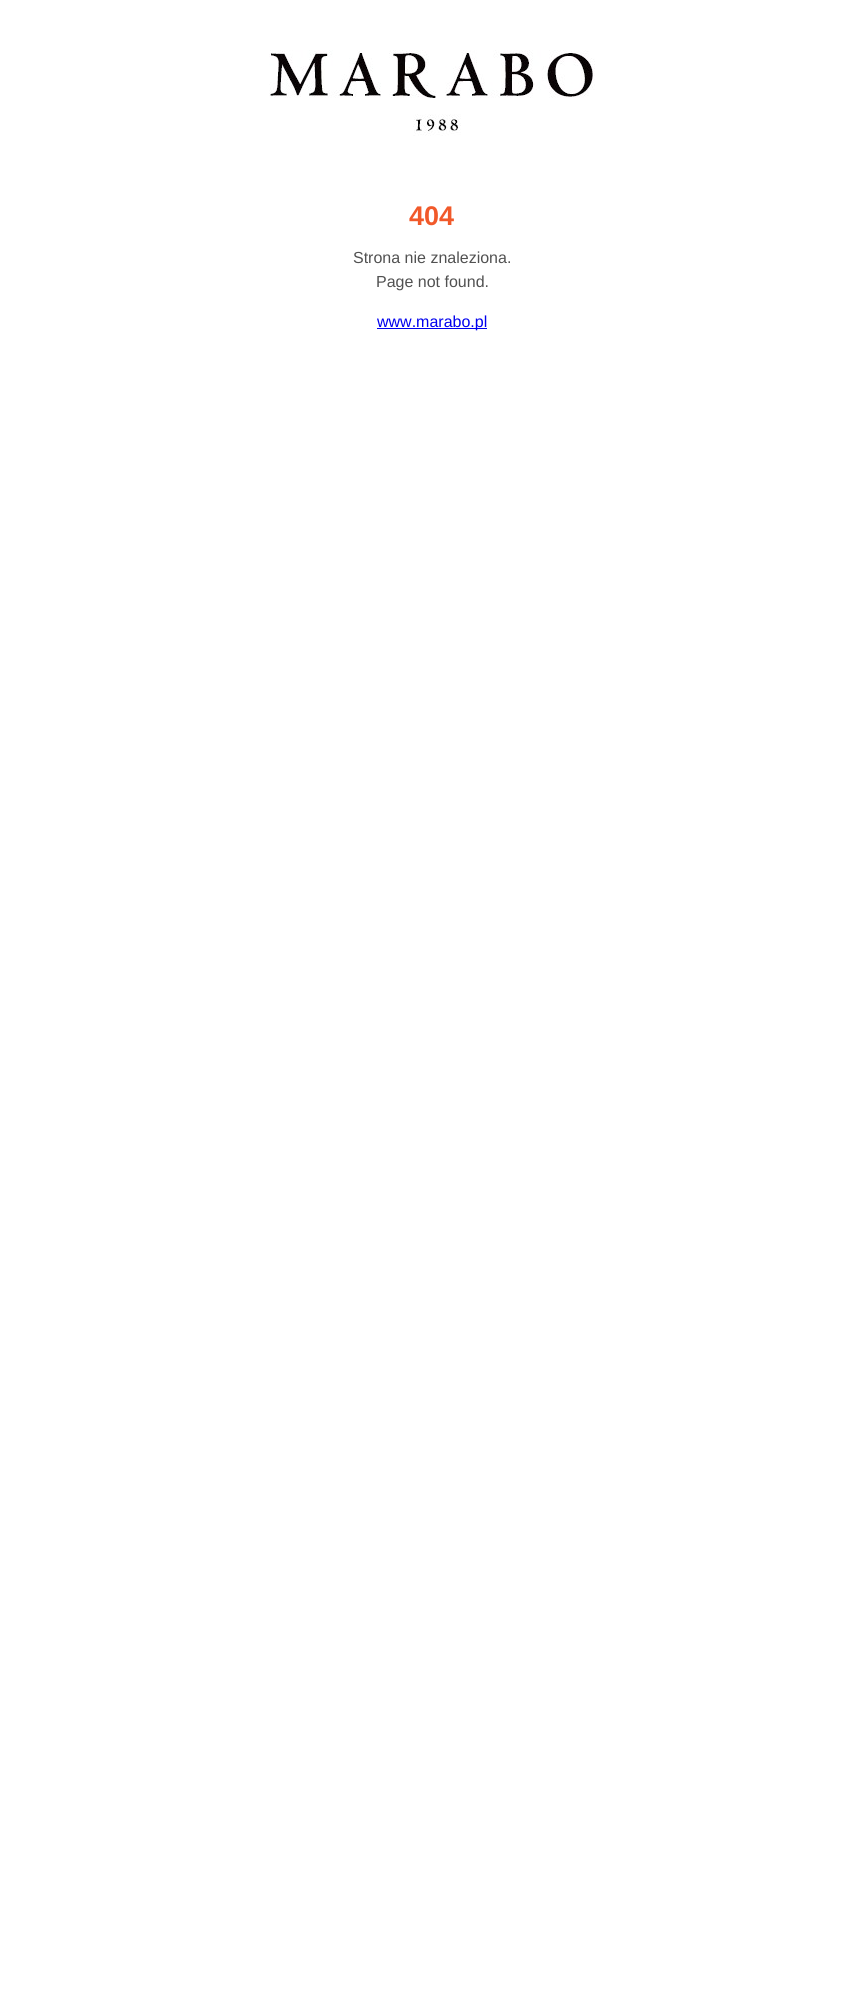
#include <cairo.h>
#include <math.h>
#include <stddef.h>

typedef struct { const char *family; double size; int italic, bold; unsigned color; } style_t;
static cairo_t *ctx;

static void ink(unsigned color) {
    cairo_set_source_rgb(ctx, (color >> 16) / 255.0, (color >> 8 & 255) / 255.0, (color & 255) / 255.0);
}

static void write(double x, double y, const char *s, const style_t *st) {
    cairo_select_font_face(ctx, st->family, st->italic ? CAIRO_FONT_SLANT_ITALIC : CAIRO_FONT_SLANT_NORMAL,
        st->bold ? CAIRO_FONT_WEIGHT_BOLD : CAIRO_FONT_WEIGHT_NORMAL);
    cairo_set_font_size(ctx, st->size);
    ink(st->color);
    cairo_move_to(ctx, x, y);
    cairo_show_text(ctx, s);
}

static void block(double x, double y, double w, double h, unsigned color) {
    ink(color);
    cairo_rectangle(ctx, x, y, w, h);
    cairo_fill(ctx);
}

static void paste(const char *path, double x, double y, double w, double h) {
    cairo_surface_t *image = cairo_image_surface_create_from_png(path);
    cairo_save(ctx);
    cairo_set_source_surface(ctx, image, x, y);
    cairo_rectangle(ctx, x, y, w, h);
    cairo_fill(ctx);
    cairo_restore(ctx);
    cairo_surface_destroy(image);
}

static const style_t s1 = {"Liberation Sans", 27, 0, 1, 0xf1592a};
static const style_t s2 = {"Liberation Sans", 16, 0, 0, 0x515151};
static const style_t s3 = {"Liberation Sans", 16, 0, 0, 0x0000ee};

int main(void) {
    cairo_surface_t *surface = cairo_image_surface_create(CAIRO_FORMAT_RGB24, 864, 2016);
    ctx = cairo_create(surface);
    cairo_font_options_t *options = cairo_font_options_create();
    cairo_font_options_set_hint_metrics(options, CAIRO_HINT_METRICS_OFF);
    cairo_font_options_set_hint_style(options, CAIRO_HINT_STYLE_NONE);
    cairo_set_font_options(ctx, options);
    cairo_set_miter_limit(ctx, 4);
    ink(0xffffff);
    cairo_paint(ctx);
    paste("pic1.png", 269, 50, 326, 86);
    write(409, 225, "404", &s1);
    write(353, 263, "Strona nie znaleziona.", &s2);
    write(376, 287, "Page not found.", &s2);
    block(377, 328, 110, 1, 0x0000ee);
    write(377, 327, "www.marabo.pl", &s3);
    cairo_surface_write_to_png(surface, "screenshot.png");
    cairo_font_options_destroy(options);
    cairo_destroy(ctx);
    cairo_surface_destroy(surface);
    return 0;
}
